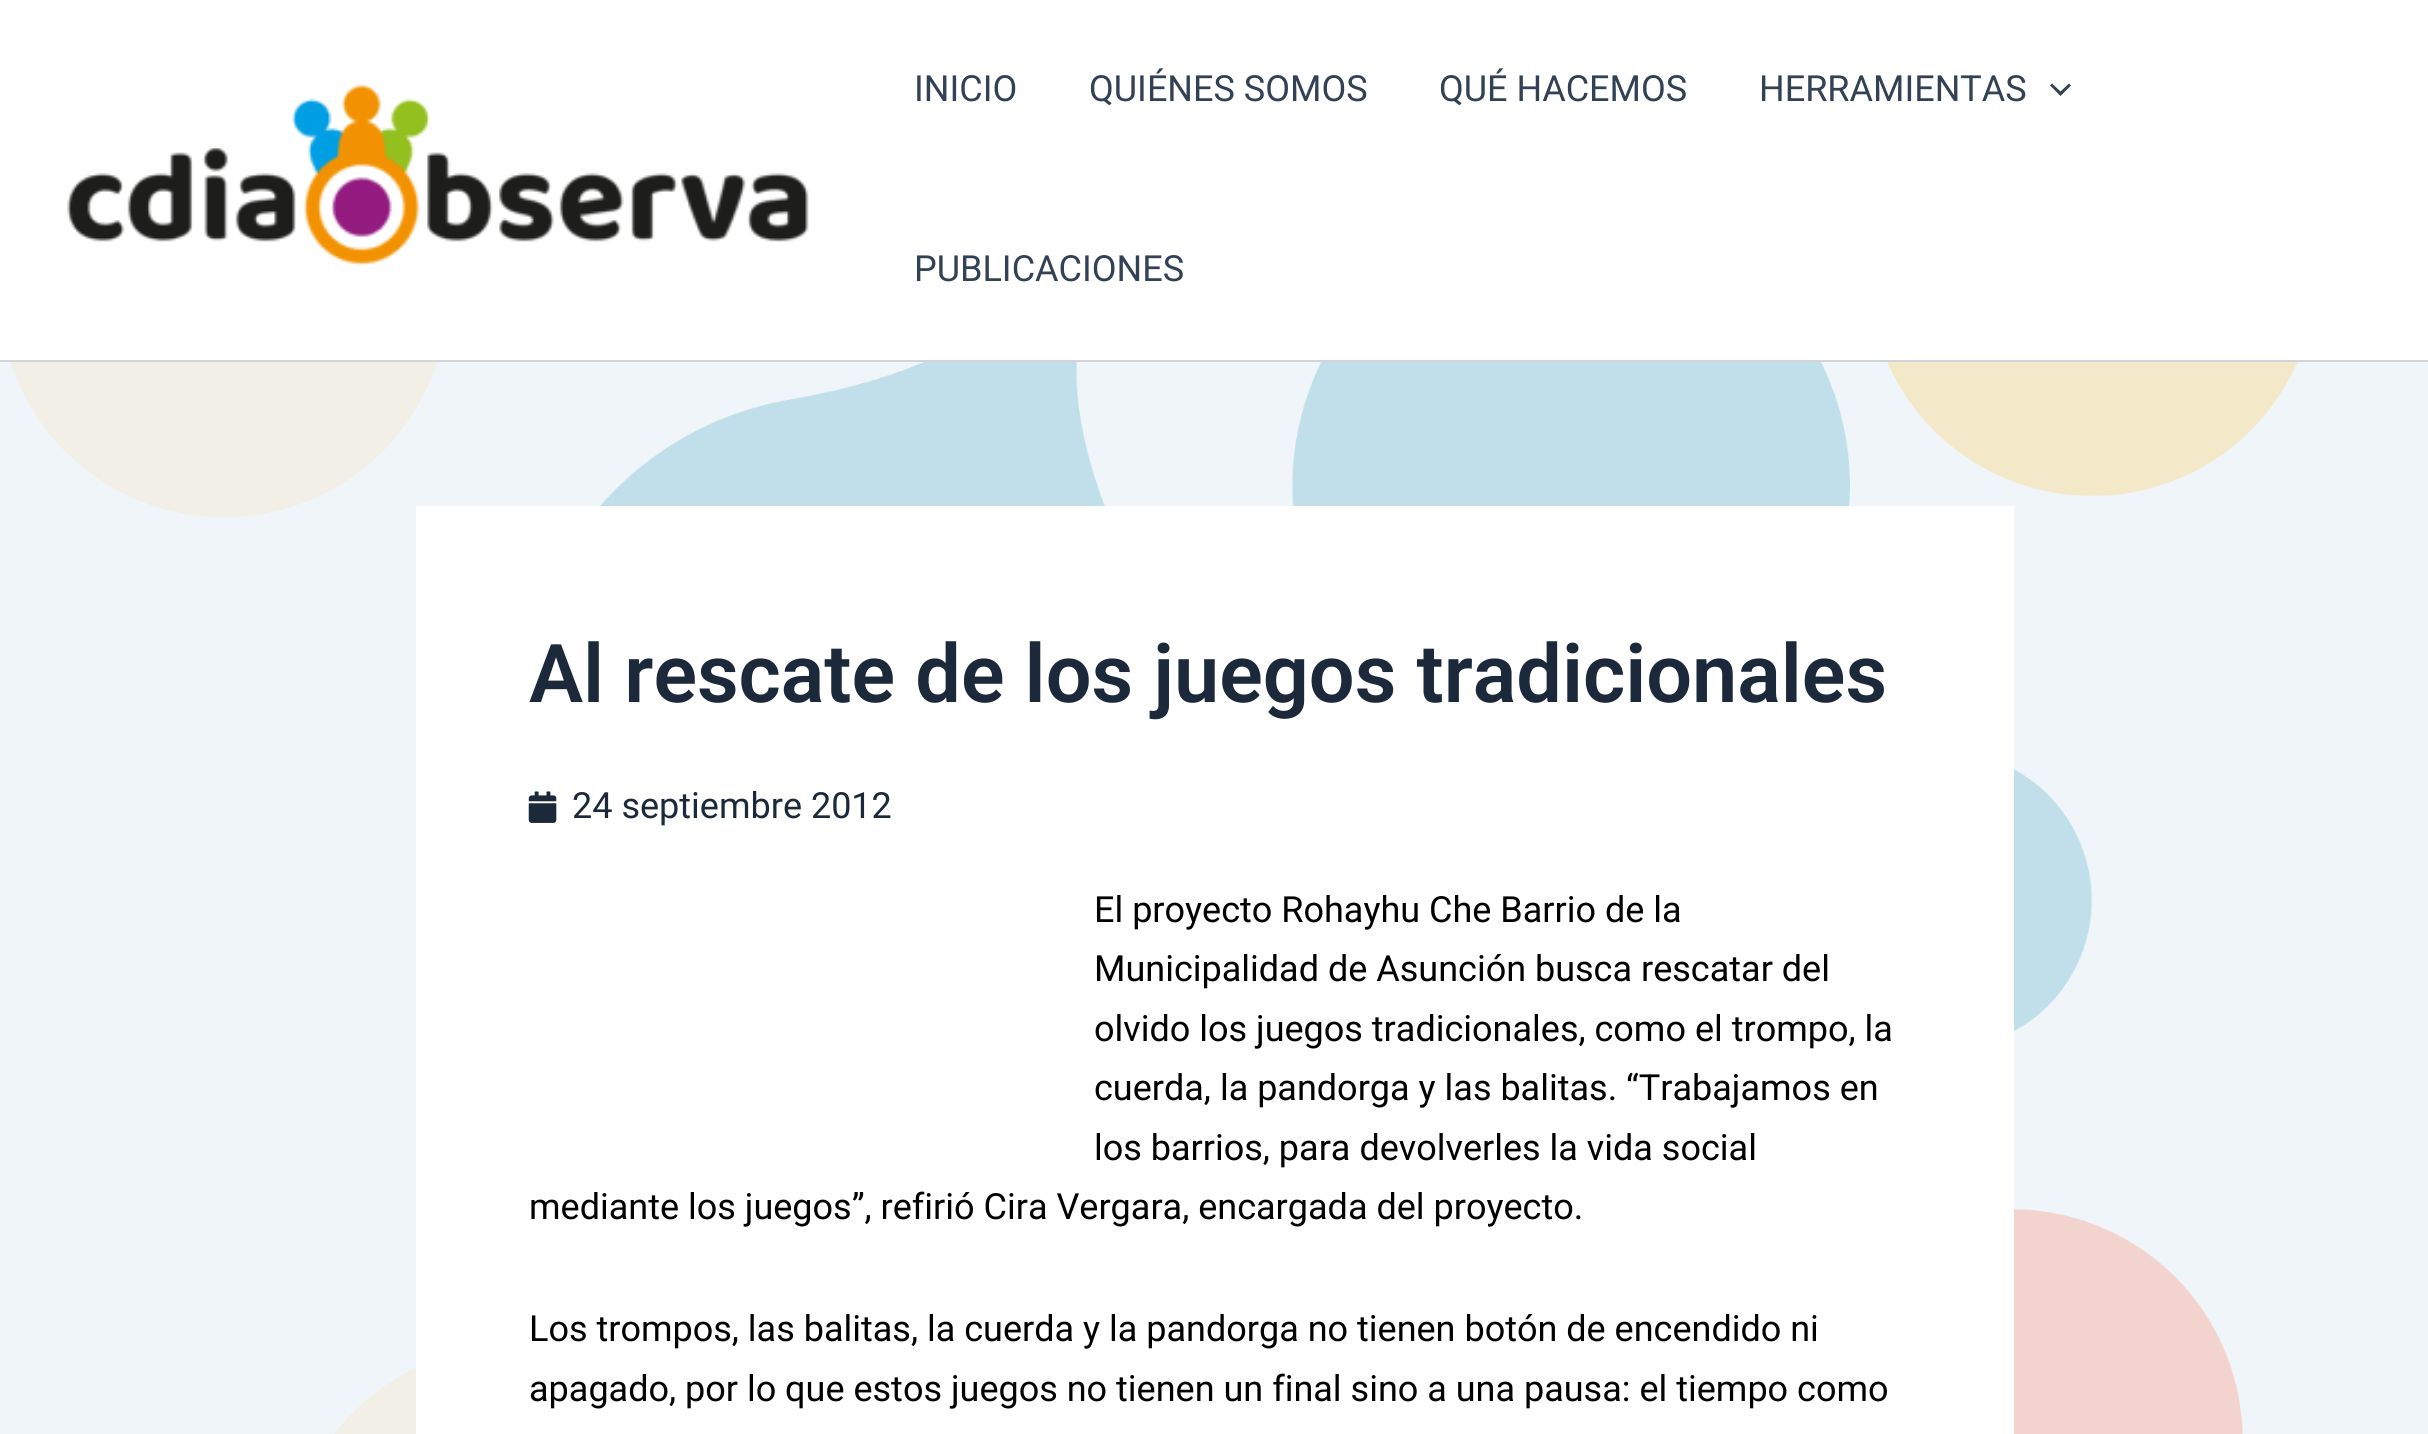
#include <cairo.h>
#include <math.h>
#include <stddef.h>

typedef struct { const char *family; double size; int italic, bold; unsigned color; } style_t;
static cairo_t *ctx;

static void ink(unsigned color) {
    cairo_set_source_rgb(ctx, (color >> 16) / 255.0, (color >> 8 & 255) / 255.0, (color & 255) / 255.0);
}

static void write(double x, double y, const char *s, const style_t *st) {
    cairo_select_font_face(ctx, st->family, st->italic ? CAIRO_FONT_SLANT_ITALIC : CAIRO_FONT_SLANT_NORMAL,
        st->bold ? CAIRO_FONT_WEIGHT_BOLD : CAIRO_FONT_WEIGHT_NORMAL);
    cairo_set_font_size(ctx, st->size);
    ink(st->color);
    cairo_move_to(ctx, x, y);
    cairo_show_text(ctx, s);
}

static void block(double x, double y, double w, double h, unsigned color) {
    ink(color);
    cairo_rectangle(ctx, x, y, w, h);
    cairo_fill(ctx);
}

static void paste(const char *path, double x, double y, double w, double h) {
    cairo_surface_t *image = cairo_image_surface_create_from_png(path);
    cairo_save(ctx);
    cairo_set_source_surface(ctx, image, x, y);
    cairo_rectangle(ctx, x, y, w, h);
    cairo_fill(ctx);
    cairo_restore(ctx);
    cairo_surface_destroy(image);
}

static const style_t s1 = {"Roboto", 36, 0, 0, 0x334155};
static const style_t s2 = {"Roboto SemiBold", 81, 0, 0, 0x1c293a};
static const style_t s3 = {"Roboto", 36, 0, 0, 0x1c293a};
static const style_t s4 = {"Roboto", 36, 0, 0, 0x000000};

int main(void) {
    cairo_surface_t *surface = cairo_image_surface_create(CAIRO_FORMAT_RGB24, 2428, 1434);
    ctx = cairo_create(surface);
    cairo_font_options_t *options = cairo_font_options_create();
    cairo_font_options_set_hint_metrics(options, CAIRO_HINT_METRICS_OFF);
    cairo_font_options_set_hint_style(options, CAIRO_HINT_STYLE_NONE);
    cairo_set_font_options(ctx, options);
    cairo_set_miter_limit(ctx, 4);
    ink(0xf0f5fa);
    cairo_paint(ctx);
    paste("pic1.png", 10, 362, 2288, 1072);
    block(0, 0, 2428, 360, 0xffffff);
    block(0, 360, 2428, 2, 0xd1d5db);
    paste("pic2.png", 67, 85, 742, 181);
    write(914, 101, "INICIO", &s1);
    write(1089, 101, "QUIÉNES SOMOS", &s1);
    write(1439, 101, "QUÉ HACEMOS", &s1);
    write(1759, 101, "HERRAMIENTAS", &s1);
    cairo_new_path(ctx);
    cairo_move_to(ctx, 2050, 85.5);
    cairo_line_to(ctx, 2060.5, 96);
    cairo_line_to(ctx, 2071, 85.5);
    cairo_line_to(ctx, 2069, 83.5);
    cairo_line_to(ctx, 2060.5, 91.5);
    cairo_line_to(ctx, 2052, 83.5);
    cairo_close_path(ctx);
    cairo_fill(ctx);
    write(914, 281, "PUBLICACIONES", &s1);
    block(416, 506, 1598, 928, 0xffffff);
    write(529, 702, "Al rescate de los juegos tradicionales", &s2);
    paste("pic3.png", 528, 791, 29, 32);
    write(572, 818, "24 septiembre 2012", &s3);
    write(1094, 922, "El proyecto Rohayhu Che Barrio de la", &s4);
    write(1094, 981, "Municipalidad de Asunción busca rescatar del", &s4);
    write(1094, 1041, "olvido los juegos tradicionales, como el trompo, la", &s4);
    write(1094, 1100, "cuerda, la pandorga y las balitas. “Trabajamos en", &s4);
    write(1094, 1160, "los barrios, para devolverles la vida social", &s4);
    write(529, 1219, "mediante los juegos”, refirió Cira Vergara, encargada del proyecto.", &s4);
    write(529, 1341, "Los trompos, las balitas, la cuerda y la pandorga no tienen botón de encendido ni", &s4);
    write(529, 1401, "apagado, por lo que estos juegos no tienen un final sino a una pausa: el tiempo como", &s4);
    cairo_surface_write_to_png(surface, "screenshot.png");
    cairo_font_options_destroy(options);
    cairo_destroy(ctx);
    cairo_surface_destroy(surface);
    return 0;
}
